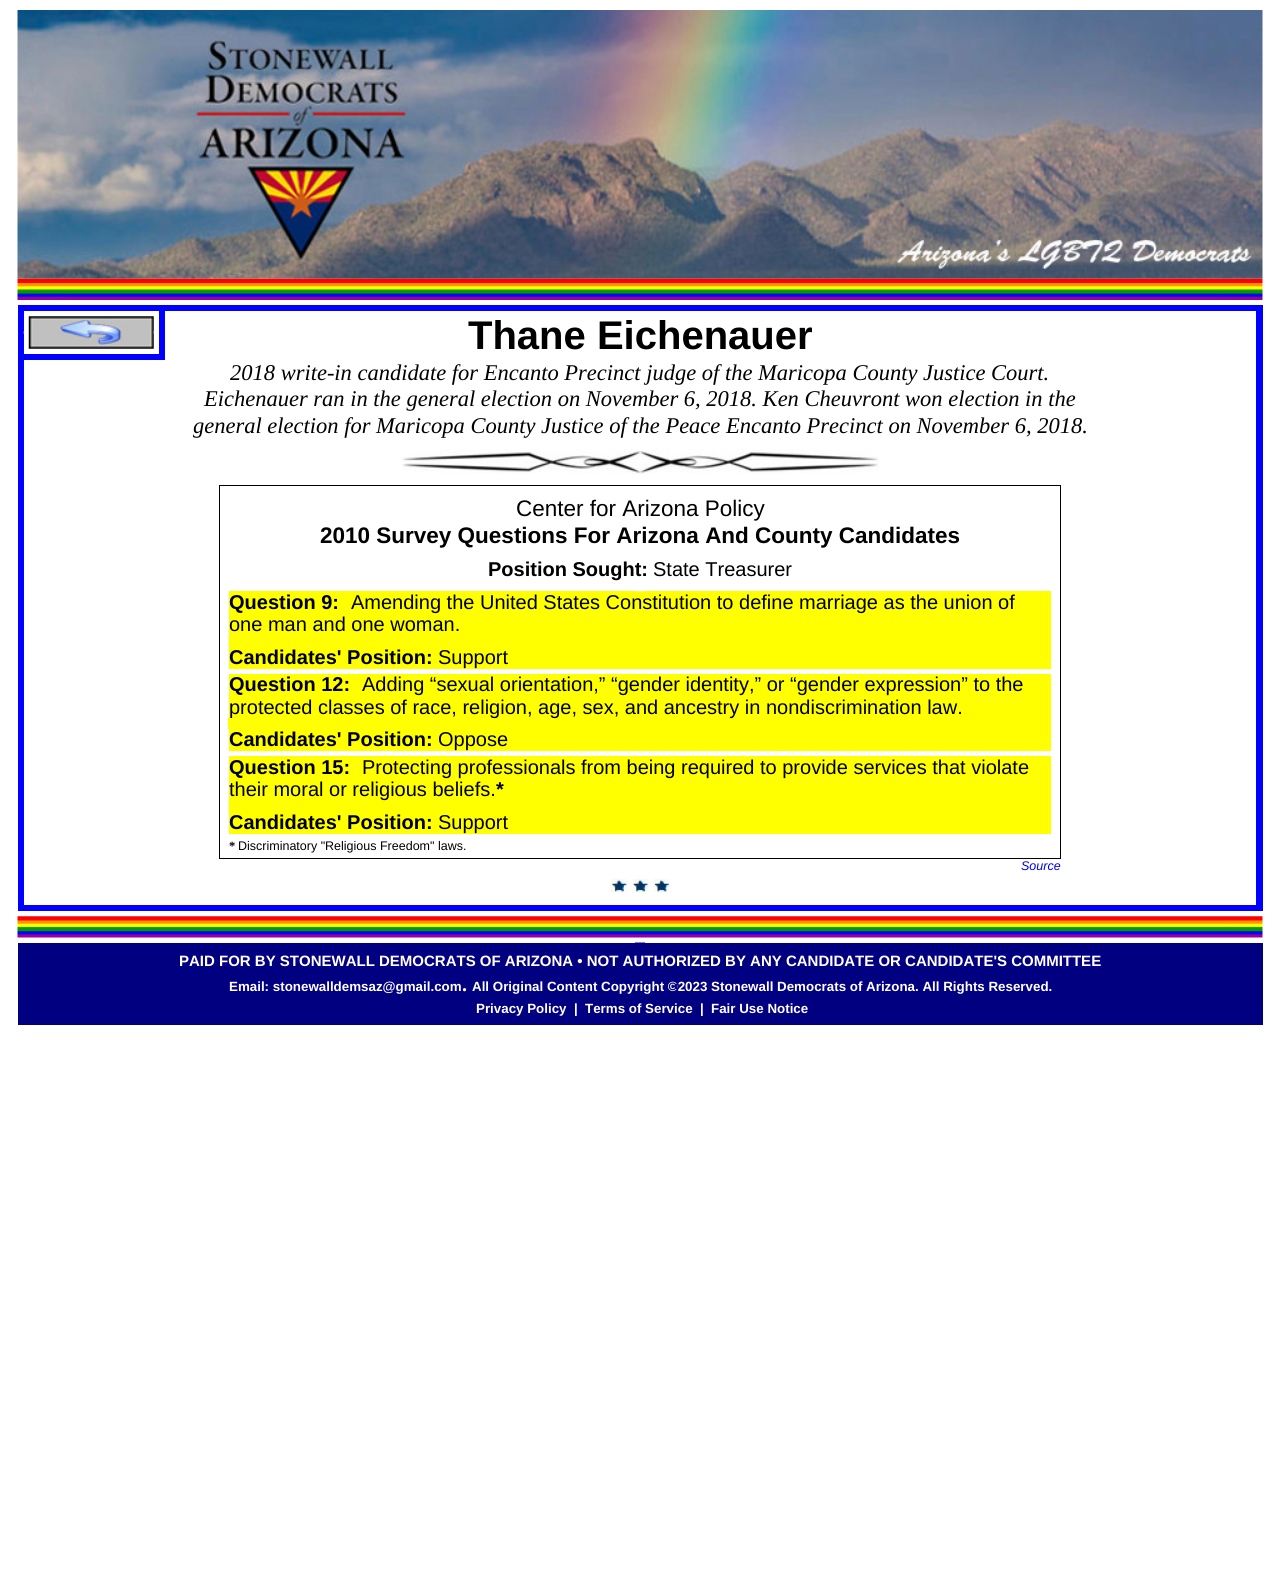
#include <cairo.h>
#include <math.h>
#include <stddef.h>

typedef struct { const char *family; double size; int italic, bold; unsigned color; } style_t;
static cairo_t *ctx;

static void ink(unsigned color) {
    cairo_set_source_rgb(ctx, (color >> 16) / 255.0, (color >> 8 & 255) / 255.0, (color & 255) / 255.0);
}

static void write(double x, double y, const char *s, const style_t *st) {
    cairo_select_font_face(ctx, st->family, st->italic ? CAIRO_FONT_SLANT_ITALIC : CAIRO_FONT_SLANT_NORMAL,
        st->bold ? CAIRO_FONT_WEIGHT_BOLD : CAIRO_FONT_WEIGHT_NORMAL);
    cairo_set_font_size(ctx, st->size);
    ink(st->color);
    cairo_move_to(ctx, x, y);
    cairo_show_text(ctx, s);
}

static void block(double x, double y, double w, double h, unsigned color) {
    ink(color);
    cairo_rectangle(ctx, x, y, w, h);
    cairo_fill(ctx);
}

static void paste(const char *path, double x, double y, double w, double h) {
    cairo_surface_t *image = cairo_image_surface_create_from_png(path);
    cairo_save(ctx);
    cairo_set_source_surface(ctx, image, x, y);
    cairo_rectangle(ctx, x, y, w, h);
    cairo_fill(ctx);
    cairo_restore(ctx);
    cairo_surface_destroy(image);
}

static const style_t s1 = {"Liberation Sans", 40, 0, 1, 0x000000};
static const style_t s2 = {"Liberation Serif", 22.5, 1, 0, 0x000000};
static const style_t s3 = {"Liberation Sans", 22.5, 0, 0, 0x000000};
static const style_t s4 = {"Liberation Sans", 22.5, 0, 1, 0x000000};
static const style_t s5 = {"Liberation Sans", 20, 0, 1, 0x000000};
static const style_t s6 = {"Liberation Sans", 20, 0, 0, 0x000000};
static const style_t s7 = {"Liberation Serif", 12.5, 0, 1, 0x000000};
static const style_t s8 = {"Liberation Sans", 12.5, 0, 0, 0x000000};
static const style_t s9 = {"Liberation Sans", 12.5, 1, 0, 0x0000ee};
static const style_t s10 = {"Liberation Sans", 15, 0, 1, 0xffffff};
static const style_t s11 = {"Liberation Sans", 13.35, 0, 1, 0xffffff};
static const style_t s12 = {"Liberation Serif", 20, 0, 1, 0xffffff};

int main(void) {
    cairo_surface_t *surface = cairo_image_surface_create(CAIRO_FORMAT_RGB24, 1279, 1585);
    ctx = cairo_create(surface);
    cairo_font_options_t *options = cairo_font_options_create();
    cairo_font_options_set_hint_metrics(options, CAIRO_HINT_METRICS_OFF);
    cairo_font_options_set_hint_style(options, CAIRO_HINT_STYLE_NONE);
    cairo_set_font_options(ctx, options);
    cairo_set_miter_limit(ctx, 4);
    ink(0xffffff);
    cairo_paint(ctx);
    paste("pic1.png", 17, 10, 1246, 269);
    paste("pic2.png", 193, 37, 217, 240);
    paste("pic3.png", 17, 278, 1246, 22);
    block(18, 305, 1245, 6, 0x0000ff);
    block(1256, 305, 7, 606, 0x0000ff);
    block(18, 905, 1245, 6, 0x0000ff);
    block(18, 305, 6, 606, 0x0000ff);
    block(159, 311, 6, 49, 0x0000ff);
    block(24, 354, 141, 6, 0x0000ff);
    paste("pic4.png", 23, 331, 1, 3);
    paste("pic5.png", 28, 316, 126, 33);
    paste("pic6.png", 153, 331, 1, 3);
    write(468, 349, "Thane Eichenauer", &s1);
    write(230, 380, "2018 write-in candidate for Encanto Precinct judge of the Maricopa County Justice Court.", &s2);
    write(204, 406, "Eichenauer ran in the general election on November 6, 2018. Ken Cheuvront won election in the", &s2);
    write(193, 433, "general election for Maricopa County Justice of the Peace Encanto Precinct on November 6, 2018.", &s2);
    paste("pic7.png", 402, 449, 477, 25);
    block(219, 485, 842, 1, 0x000000);
    block(1060, 496, 1, 363, 0x000000);
    block(1060, 485, 1, 13, 0x000000);
    block(219, 858, 842, 1, 0x000000);
    block(219, 496, 1, 363, 0x000000);
    block(219, 485, 1, 13, 0x000000);
    write(516, 516, "Center for Arizona Policy", &s3);
    write(320, 543, "2010 Survey Questions For Arizona And County Candidates", &s4);
    write(488, 576, "Position Sought:", &s5);
    write(653, 576, "State Treasurer", &s6);
    block(229, 591, 822, 78, 0xffff00);
    block(635, 591, 10, 1, 0xffff40);
    write(229, 609, "Question 9:", &s5);
    write(351, 609, "Amending the United States Constitution to define marriage as the union of", &s6);
    write(229, 631, "one man and one woman.", &s6);
    paste("pic8.png", 228, 636, 1, 11);
    write(229, 664, "Candidates' Position:", &s5);
    write(438, 664, "Support", &s6);
    block(229, 674, 822, 45, 0xffff00);
    write(229, 691, "Question 12:", &s5);
    write(362, 691, "Adding “sexual orientation,” “gender identity,” or “gender expression” to the", &s6);
    write(229, 714, "protected classes of race, religion, age, sex, and ancestry in nondiscrimination law.", &s6);
    block(232, 719, 819, 10, 0xffff00);
    block(228, 718, 4, 11, 0xffff01);
    block(229, 729, 822, 22, 0xffff00);
    write(229, 746, "Candidates' Position:", &s5);
    write(438, 746, "Oppose", &s6);
    block(229, 756, 822, 78, 0xffff00);
    write(229, 774, "Question 15:", &s5);
    write(362, 774, "Protecting professionals from being required to provide services that violate", &s6);
    write(229, 796, "their moral or religious beliefs.", &s6);
    write(496, 796, "*", &s5);
    paste("pic8.png", 228, 801, 1, 11);
    write(229, 829, "Candidates' Position:", &s5);
    write(438, 829, "Support", &s6);
    write(229, 850, "*", &s7);
    write(238, 850, "Discriminatory \"Religious Freedom\" laws.", &s8);
    write(1021, 870, "Source", &s9);
    paste("pic9.png", 611, 878, 17, 15);
    paste("pic10.png", 632, 878, 17, 15);
    paste("pic11.png", 653, 878, 17, 15);
    paste("pic12.png", 17, 916, 1246, 22);
    block(18, 943, 1245, 82, 0x010081);
    block(635, 942, 10, 1, 0x8080c0);
    write(179, 966, "PAID FOR BY STONEWALL DEMOCRATS OF ARIZONA • NOT AUTHORIZED BY ANY CANDIDATE OR CANDIDATE'S COMMITTEE", &s10);
    write(229, 991, "Email: stonewalldemsaz@gmail.com", &s11);
    write(472, 991, "All Original Content Copyright ©2023 Stonewall Democrats of Arizona. All Rights Reserved.", &s11);
    block(676, 984, 1, 5, 0x010081);
    write(462, 991, ".", &s12);
    write(476, 1013, "Privacy Policy", &s11);
    write(574, 1013, "|", &s11);
    write(585, 1013, "Terms of Service", &s11);
    write(700, 1013, "|", &s11);
    write(711, 1013, "Fair Use Notice", &s11);
    cairo_surface_write_to_png(surface, "screenshot.png");
    cairo_font_options_destroy(options);
    cairo_destroy(ctx);
    cairo_surface_destroy(surface);
    return 0;
}
